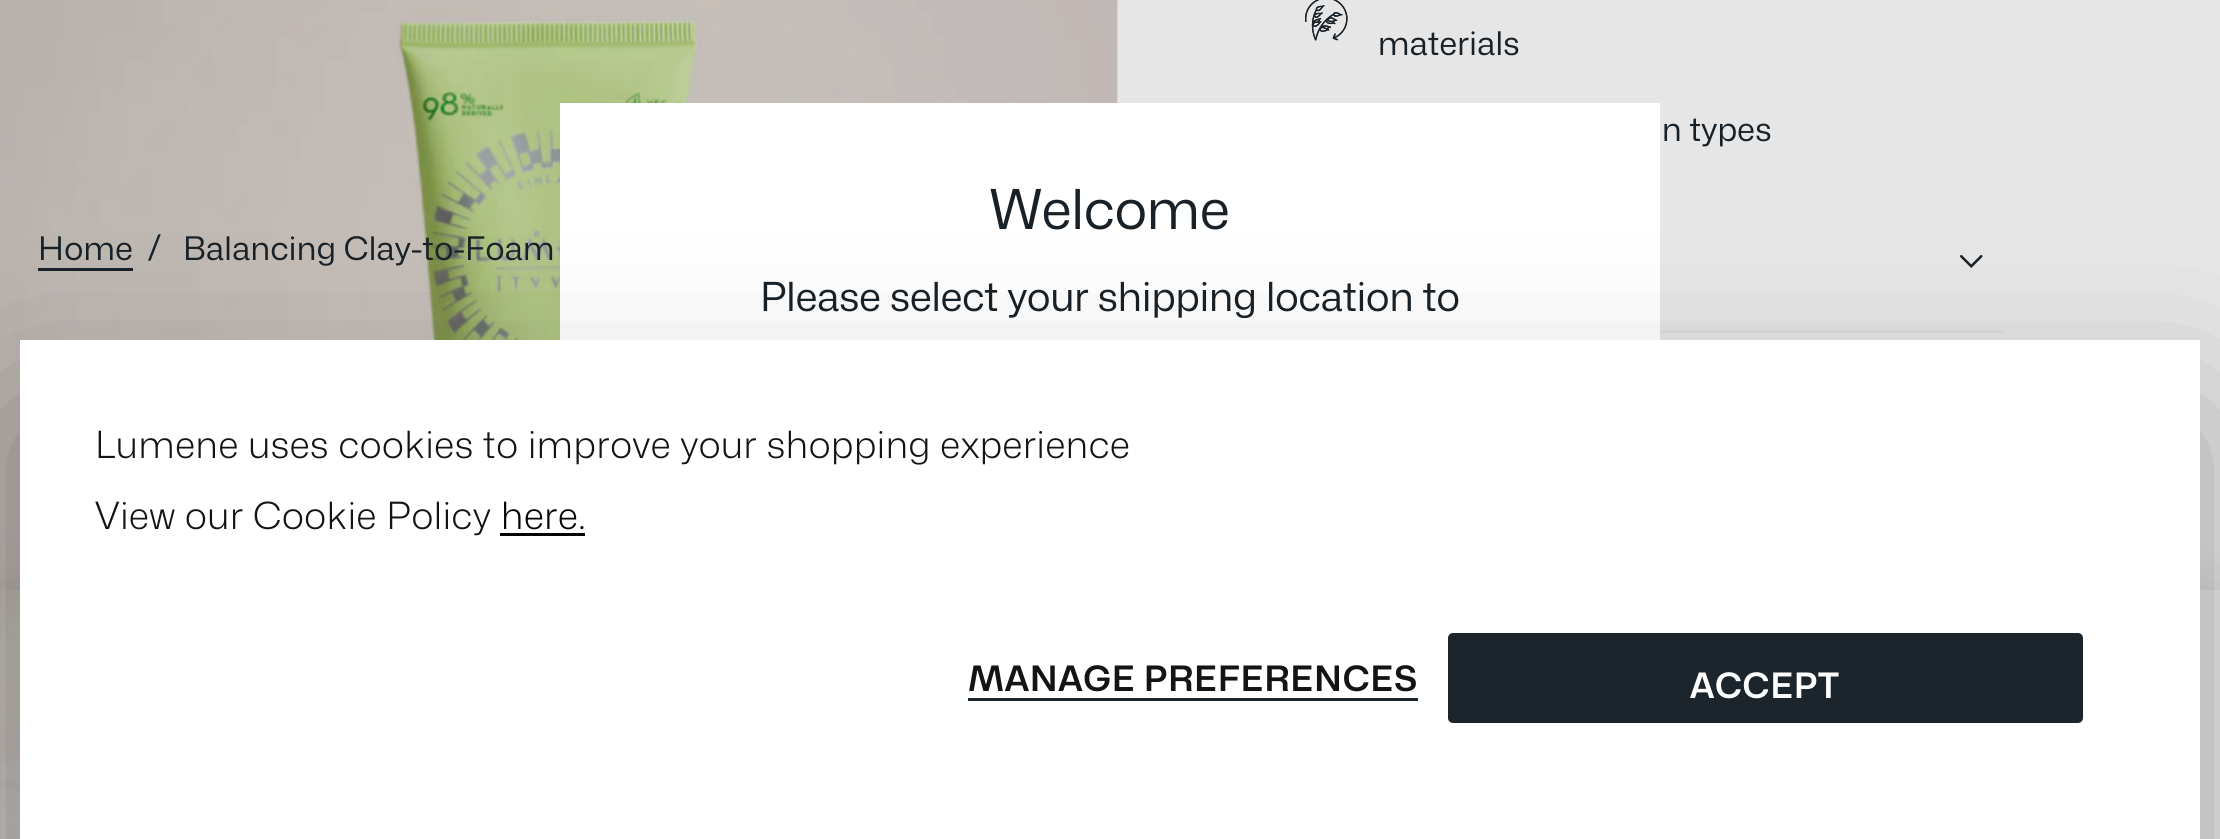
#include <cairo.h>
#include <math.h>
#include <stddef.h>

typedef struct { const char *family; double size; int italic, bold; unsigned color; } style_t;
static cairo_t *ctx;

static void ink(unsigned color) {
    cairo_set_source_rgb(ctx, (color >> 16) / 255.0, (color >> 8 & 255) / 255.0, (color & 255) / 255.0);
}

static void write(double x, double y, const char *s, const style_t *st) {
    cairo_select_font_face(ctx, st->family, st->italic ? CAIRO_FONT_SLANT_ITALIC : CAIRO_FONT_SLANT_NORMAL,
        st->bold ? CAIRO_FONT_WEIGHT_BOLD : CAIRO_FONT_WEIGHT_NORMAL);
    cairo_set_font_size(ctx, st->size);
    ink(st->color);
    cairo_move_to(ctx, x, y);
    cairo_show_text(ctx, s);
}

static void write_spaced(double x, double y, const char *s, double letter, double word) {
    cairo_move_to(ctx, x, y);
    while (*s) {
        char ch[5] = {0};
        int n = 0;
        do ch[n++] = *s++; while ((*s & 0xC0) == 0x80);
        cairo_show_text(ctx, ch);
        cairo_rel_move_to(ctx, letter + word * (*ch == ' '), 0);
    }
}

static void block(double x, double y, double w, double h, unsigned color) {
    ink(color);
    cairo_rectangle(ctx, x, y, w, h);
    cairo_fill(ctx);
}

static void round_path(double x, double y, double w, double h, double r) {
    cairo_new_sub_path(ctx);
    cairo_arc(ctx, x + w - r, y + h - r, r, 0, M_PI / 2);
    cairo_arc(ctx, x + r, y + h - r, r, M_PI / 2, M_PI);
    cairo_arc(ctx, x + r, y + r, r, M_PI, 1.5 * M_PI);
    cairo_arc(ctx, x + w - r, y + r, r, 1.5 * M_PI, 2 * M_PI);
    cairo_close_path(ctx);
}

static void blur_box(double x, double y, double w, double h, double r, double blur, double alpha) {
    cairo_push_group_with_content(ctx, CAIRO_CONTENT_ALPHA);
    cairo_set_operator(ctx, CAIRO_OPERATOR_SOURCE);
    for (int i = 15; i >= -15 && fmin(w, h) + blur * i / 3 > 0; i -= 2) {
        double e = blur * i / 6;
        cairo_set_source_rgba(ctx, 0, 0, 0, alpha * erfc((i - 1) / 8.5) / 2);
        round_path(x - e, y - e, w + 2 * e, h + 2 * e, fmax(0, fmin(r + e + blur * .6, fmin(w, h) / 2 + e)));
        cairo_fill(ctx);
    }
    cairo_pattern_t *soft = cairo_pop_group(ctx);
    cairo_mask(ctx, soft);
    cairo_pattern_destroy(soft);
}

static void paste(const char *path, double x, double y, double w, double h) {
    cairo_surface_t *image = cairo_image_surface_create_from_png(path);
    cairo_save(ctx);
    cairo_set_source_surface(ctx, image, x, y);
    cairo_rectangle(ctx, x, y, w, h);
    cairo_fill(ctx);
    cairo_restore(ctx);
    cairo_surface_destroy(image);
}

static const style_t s1 = {"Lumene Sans", 55, 0, 0, 0x192128};
static const style_t s2 = {"Lumene Sans", 40, 0, 0, 0x192128};

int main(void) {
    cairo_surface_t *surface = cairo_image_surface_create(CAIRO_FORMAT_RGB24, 2220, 839);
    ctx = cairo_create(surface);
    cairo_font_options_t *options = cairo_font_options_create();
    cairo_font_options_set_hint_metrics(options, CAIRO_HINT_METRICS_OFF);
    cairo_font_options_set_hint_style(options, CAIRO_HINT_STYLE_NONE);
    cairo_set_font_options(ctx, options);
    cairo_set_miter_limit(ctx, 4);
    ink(0xe6e6e6);
    cairo_paint(ctx);
    paste("pic1.png", 1305, 0, 43, 41);
    cairo_select_font_face(ctx, "Lumene Sans", CAIRO_FONT_SLANT_NORMAL, CAIRO_FONT_WEIGHT_NORMAL);
    cairo_set_font_size(ctx, 32.5);
    ink(0x192128);
    write_spaced(1378, 55, "materials", 0.3, 0);
    write_spaced(1662, 141, "n types", 0.3, 0);
    block(1660, 330, 343, 3, 0xdcdddd);
    paste("pic2.png", 1960, 255, 23, 13);
    paste("pic3.png", 0, 0, 1118, 590);
    paste("pic4.png", 1117, 0, 1, 103);
    ink(0x192128);
    write_spaced(38, 260, "Home", 0.3, 0);
    block(38, 268, 95, 3, 0x192128);
    write_spaced(147, 258, "/", 0.3, 0);
    write_spaced(183, 260, "Balancing Clay-to-Foam", 0.3, 0);
    ink(0x000000);
    blur_box(0, 590, 2220, 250, 0, 25, 0.1);
    block(2200, 590, 20, 249, 0xe6e6e6);
    paste("pic5.png", 0, 590, 20, 249);
    block(560, 103, 1100, 237, 0xffffff);
    write(990, 229, "Welcome", &s1);
    write(760, 311, "Please select your shipping location to", &s2);
    ink(0x000000);
    blur_box(20, 420, 2180, 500, 0, 85, 0.3);
    block(20, 340, 2180, 499, 0xffffff);
    cairo_select_font_face(ctx, "Lumene Sans Light", CAIRO_FONT_SLANT_NORMAL, CAIRO_FONT_WEIGHT_NORMAL);
    cairo_set_font_size(ctx, 37.5);
    ink(0x141414);
    write_spaced(95, 458, "Lumene uses cookies to improve your shopping experience", 0.62, 0);
    write_spaced(95, 529, "View our Cookie Policy", 0.65, 0);
    ink(0x030303);
    write_spaced(501, 529, "here.", 0.65, 0);
    block(500, 533, 85, 3, 0x030303);
    cairo_select_font_face(ctx, "Lumene Sans SemiBold", CAIRO_FONT_SLANT_NORMAL, CAIRO_FONT_WEIGHT_NORMAL);
    cairo_set_font_size(ctx, 35);
    ink(0x141414);
    write_spaced(968, 691, "MANAGE PREFERENCES", 0.75, 0);
    block(968, 698, 450, 3, 0x1c252c);
    round_path(1445.5, 630.5, 640, 95, 7.5);
    cairo_fill_preserve(ctx);
    ink(0xffffff);
    cairo_set_line_width(ctx, 5);
    cairo_stroke(ctx);
    write_spaced(1690, 698, "ACCEPT", 0.75, 0);
    cairo_surface_write_to_png(surface, "screenshot.png");
    cairo_font_options_destroy(options);
    cairo_destroy(ctx);
    cairo_surface_destroy(surface);
    return 0;
}
